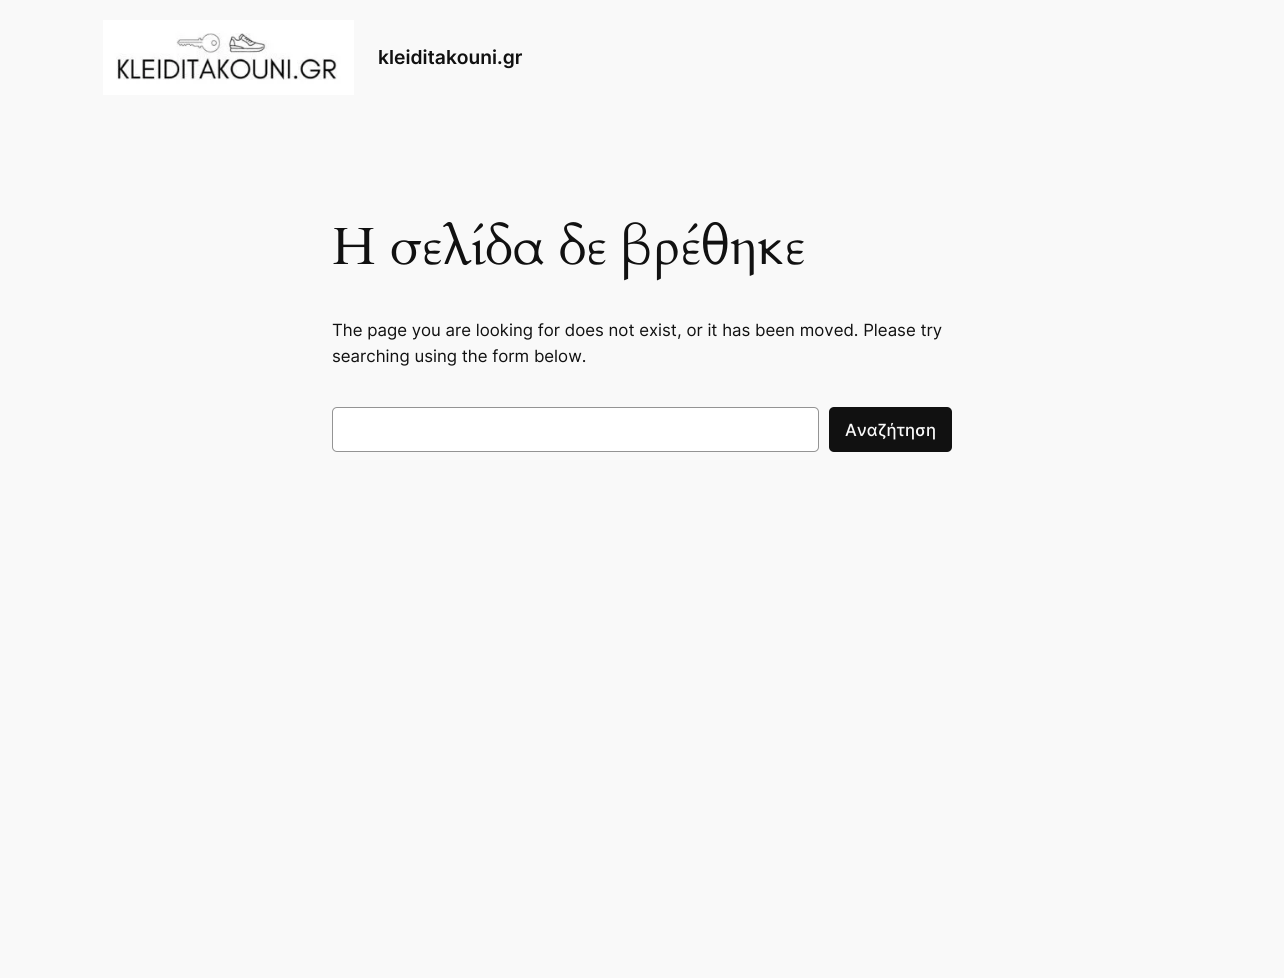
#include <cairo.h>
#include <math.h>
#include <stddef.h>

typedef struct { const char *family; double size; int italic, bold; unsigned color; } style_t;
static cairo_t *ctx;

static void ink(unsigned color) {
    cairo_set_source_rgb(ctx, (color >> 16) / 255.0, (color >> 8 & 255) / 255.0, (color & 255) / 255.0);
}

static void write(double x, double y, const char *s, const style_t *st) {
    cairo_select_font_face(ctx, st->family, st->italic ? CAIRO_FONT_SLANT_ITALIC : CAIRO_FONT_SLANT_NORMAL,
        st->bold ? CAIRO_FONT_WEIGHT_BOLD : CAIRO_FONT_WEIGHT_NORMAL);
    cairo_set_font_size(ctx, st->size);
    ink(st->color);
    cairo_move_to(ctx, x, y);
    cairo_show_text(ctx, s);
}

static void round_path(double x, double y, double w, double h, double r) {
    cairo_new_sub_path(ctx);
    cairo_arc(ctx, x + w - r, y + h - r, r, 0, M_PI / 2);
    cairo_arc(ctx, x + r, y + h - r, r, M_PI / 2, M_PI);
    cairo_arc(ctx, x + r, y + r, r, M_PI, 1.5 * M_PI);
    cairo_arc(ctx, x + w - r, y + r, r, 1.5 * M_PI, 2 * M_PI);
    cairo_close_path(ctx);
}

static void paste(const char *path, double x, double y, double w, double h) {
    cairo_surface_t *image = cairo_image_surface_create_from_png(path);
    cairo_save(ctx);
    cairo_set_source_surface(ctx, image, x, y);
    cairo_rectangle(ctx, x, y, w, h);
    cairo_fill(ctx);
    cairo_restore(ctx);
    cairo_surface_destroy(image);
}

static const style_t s1 = {"Inter SemiBold", 19.25, 0, 0, 0x111111};
static const style_t s2 = {"Inter", 16.8, 0, 0, 0x111111};
static const style_t s3 = {"Inter Medium", 16.8, 0, 0, 0xf9f9f9};

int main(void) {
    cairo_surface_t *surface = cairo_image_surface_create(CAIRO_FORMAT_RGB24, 1284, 978);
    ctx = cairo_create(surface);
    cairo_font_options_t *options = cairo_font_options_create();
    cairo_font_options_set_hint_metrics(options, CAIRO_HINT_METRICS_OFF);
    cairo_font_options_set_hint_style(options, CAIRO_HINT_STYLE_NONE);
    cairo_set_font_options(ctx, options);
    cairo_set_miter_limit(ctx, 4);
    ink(0xf9f9f9);
    cairo_paint(ctx);
    paste("pic1.png", 103, 20, 251, 75);
    write(378, 64, "kleiditakouni.gr", &s1);
    paste("pic2.png", 333, 222, 471, 59);
    write(332, 336, "The page you are looking for does not exist, or it has been moved. Please try", &s2);
    write(332, 362, "searching using the form below.", &s2);
    ink(0xffffff);
    round_path(332.5, 407.5, 486, 44, 4.5);
    cairo_fill_preserve(ctx);
    ink(0x949494);
    cairo_set_line_width(ctx, 1);
    cairo_stroke(ctx);
    ink(0x111111);
    round_path(829, 407, 123, 45, 5);
    cairo_fill(ctx);
    write(845, 436, "Αναζήτηση", &s3);
    cairo_surface_write_to_png(surface, "screenshot.png");
    cairo_font_options_destroy(options);
    cairo_destroy(ctx);
    cairo_surface_destroy(surface);
    return 0;
}
